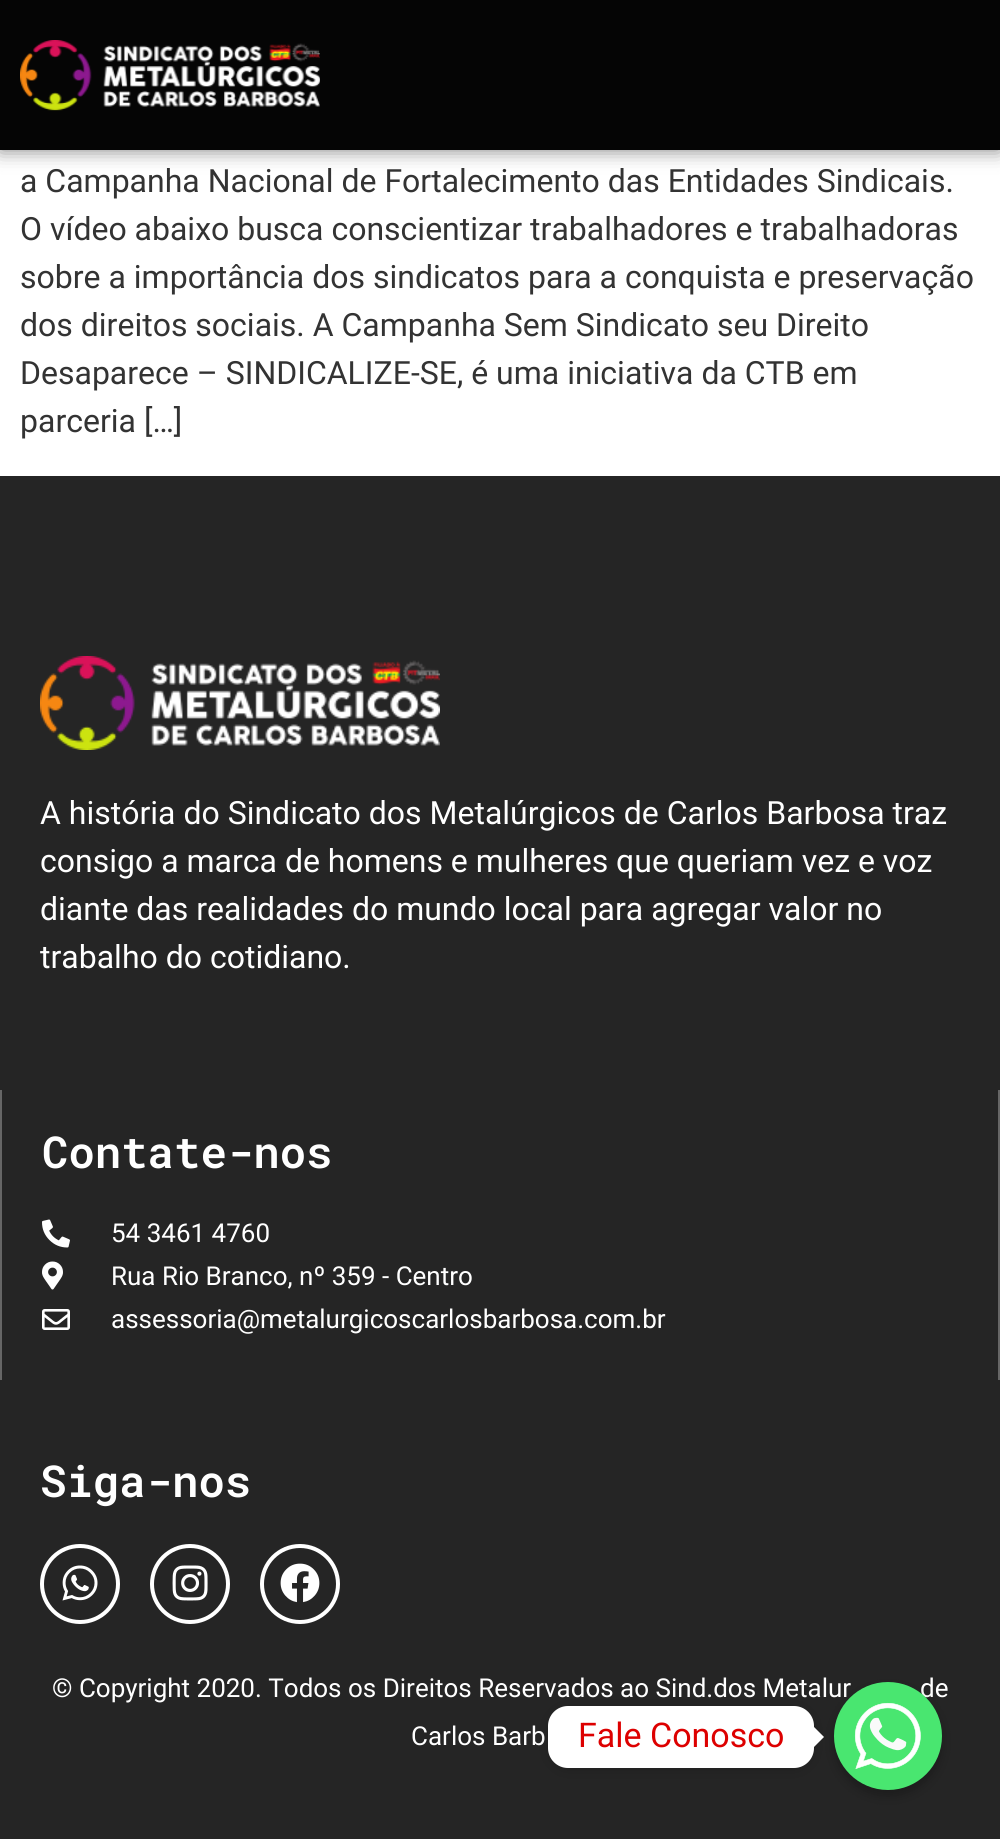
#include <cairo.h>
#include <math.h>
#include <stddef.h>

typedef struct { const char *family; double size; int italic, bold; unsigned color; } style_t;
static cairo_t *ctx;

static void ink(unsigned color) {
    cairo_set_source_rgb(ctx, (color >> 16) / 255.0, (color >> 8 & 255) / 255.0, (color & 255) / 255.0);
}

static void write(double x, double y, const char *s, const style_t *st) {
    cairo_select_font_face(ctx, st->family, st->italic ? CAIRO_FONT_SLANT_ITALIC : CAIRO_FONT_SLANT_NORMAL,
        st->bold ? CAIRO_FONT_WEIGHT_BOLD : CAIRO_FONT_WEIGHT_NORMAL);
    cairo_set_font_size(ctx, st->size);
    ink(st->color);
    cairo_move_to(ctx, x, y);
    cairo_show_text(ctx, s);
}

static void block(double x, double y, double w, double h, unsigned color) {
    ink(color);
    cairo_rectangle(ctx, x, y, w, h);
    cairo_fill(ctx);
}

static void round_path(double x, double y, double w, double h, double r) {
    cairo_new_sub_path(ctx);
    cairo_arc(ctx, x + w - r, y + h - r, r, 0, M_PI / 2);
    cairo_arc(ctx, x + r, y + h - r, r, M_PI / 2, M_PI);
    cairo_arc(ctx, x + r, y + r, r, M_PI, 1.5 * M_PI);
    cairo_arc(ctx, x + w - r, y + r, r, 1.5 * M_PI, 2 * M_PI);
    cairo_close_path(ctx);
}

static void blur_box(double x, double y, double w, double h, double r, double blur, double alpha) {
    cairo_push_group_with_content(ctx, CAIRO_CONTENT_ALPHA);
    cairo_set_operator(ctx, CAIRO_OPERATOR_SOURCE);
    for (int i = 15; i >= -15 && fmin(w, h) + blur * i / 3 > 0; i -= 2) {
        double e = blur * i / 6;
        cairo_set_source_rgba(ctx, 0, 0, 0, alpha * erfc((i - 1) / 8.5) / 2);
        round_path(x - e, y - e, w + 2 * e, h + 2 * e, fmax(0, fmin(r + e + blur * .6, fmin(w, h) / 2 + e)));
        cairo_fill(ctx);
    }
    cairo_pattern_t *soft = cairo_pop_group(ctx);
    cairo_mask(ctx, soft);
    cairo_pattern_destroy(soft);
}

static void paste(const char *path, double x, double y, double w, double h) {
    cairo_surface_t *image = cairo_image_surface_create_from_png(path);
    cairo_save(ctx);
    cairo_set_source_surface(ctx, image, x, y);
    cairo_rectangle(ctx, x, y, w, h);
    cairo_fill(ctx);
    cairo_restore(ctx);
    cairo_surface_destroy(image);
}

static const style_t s1 = {"Roboto", 32, 0, 0, 0x333333};
static const style_t s2 = {"Roboto", 32, 0, 0, 0xffffff};
static const style_t s3 = {"Roboto Mono SemiBold", 44, 0, 0, 0xffffff};
static const style_t s4 = {"Roboto", 26, 0, 0, 0xffffff};
static const style_t s5 = {"Roboto", 34, 0, 0, 0xdd0000};

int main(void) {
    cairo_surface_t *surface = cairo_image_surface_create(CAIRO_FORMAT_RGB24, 1000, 1839);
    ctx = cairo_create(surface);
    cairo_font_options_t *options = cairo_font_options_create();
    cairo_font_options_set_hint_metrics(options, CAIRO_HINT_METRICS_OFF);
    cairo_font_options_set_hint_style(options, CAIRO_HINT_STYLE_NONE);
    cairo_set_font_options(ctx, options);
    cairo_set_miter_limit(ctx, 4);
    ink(0xffffff);
    cairo_paint(ctx);
    ink(0x000000);
    blur_box(0, 0, 1000, 150, 0, 10, 0.5);
    block(0, 0, 1000, 150, 0x050505);
    paste("pic1.png", 20, 40, 300, 71);
    write(20, 192, "a Campanha Nacional de Fortalecimento das Entidades Sindicais.", &s1);
    write(20, 240, "O vídeo abaixo busca conscientizar trabalhadores e trabalhadoras", &s1);
    write(20, 288, "sobre a importância dos sindicatos para a conquista e preservação", &s1);
    write(20, 336, "dos direitos sociais. A Campanha Sem Sindicato seu Direito", &s1);
    write(20, 384, "Desaparece – SINDICALIZE-SE, é uma iniciativa da CTB em", &s1);
    write(20, 432, "parceria […]", &s1);
    block(0, 476, 1000, 1363, 0x252525);
    paste("pic2.png", 40, 656, 400, 94);
    write(40, 824, "A história do Sindicato dos Metalúrgicos de Carlos Barbosa traz", &s2);
    write(40, 872, "consigo a marca de homens e mulheres que queriam vez e voz", &s2);
    write(40, 920, "diante das realidades do mundo local para agregar valor no", &s2);
    write(40, 968, "trabalho do cotidiano.", &s2);
    block(998, 1090, 2, 290, 0x666666);
    block(0, 1090, 2, 290, 0x666666);
    write(42, 1168, "Contate-nos", &s3);
    paste("pic3.png", 42, 1219, 28, 29);
    write(111, 1242, "54 3461 4760", &s4);
    paste("pic4.png", 42, 1261, 21, 29);
    write(111, 1285, "Rua Rio Branco, nº 359 - Centro", &s4);
    paste("pic5.png", 42, 1309, 28, 21);
    write(111, 1328, "assessoria@metalurgicoscarlosbarbosa.com.br", &s4);
    write(40, 1497, "Siga-nos", &s3);
    cairo_new_path(ctx);
    cairo_arc(ctx, 80, 1584, 38, 0, 2 * M_PI);
    cairo_set_line_width(ctx, 4);
    cairo_stroke(ctx);
    paste("pic6.png", 62, 1565, 36, 36);
    cairo_arc(ctx, 190, 1584, 38, 0, 2 * M_PI);
    cairo_stroke(ctx);
    paste("pic7.png", 172, 1565, 36, 36);
    cairo_arc(ctx, 300, 1584, 38, 0, 2 * M_PI);
    cairo_stroke(ctx);
    paste("pic8.png", 280, 1563, 40, 40);
    write(52, 1697, "© Copyright 2020. Todos os Direitos Reservados ao Sind.dos Metalur", &s4);
    write(920, 1697, "de", &s4);
    write(411, 1745, "Carlos Barb", &s4);
    ink(0x000000);
    blur_box(834, 1688, 108, 108, 54, 6, 0.25);
    paste("pic9.png", 834, 1682, 108, 108);
    blur_box(548, 1708, 266, 62, 20, 7.5, 0.15);
    ink(0xffffff);
    round_path(548, 1706, 266, 62, 20);
    cairo_fill(ctx);
    write(578, 1747, "Fale Conosco", &s5);
    ink(0xffffff);
    cairo_new_path(ctx);
    cairo_move_to(ctx, 814, 1747);
    cairo_line_to(ctx, 814, 1727);
    cairo_line_to(ctx, 824, 1737);
    cairo_close_path(ctx);
    cairo_fill(ctx);
    cairo_surface_write_to_png(surface, "screenshot.png");
    cairo_font_options_destroy(options);
    cairo_destroy(ctx);
    cairo_surface_destroy(surface);
    return 0;
}
